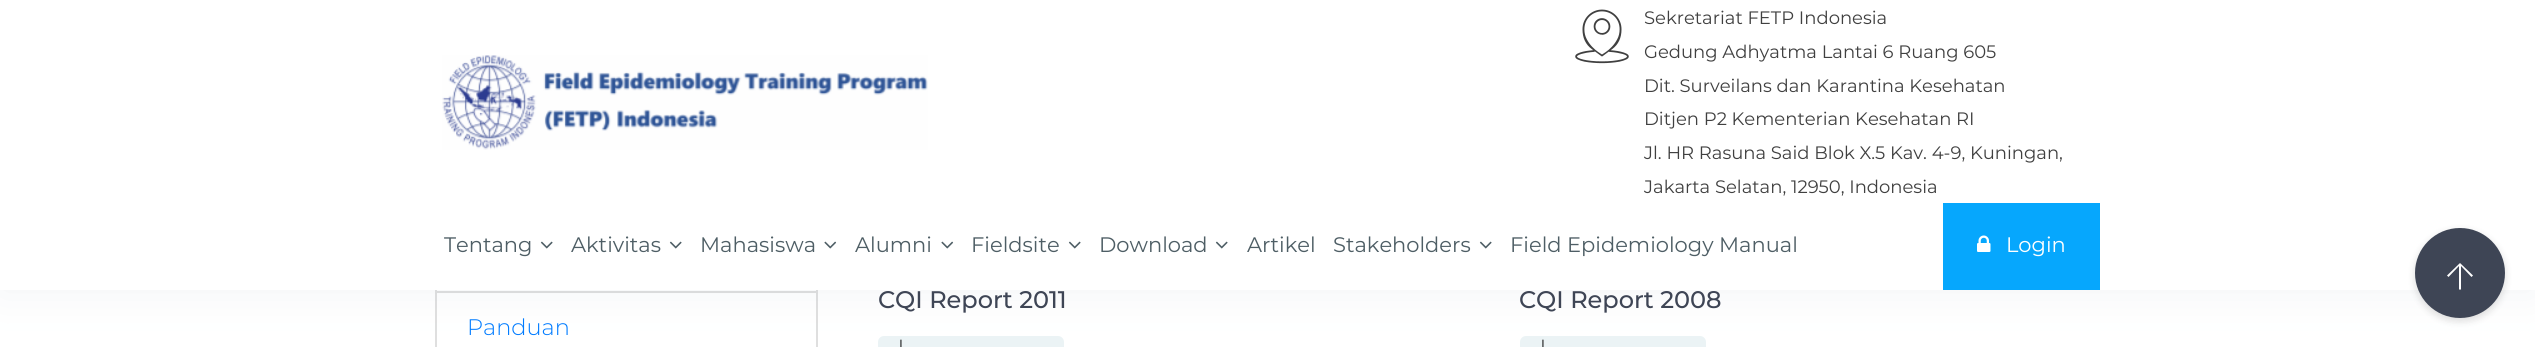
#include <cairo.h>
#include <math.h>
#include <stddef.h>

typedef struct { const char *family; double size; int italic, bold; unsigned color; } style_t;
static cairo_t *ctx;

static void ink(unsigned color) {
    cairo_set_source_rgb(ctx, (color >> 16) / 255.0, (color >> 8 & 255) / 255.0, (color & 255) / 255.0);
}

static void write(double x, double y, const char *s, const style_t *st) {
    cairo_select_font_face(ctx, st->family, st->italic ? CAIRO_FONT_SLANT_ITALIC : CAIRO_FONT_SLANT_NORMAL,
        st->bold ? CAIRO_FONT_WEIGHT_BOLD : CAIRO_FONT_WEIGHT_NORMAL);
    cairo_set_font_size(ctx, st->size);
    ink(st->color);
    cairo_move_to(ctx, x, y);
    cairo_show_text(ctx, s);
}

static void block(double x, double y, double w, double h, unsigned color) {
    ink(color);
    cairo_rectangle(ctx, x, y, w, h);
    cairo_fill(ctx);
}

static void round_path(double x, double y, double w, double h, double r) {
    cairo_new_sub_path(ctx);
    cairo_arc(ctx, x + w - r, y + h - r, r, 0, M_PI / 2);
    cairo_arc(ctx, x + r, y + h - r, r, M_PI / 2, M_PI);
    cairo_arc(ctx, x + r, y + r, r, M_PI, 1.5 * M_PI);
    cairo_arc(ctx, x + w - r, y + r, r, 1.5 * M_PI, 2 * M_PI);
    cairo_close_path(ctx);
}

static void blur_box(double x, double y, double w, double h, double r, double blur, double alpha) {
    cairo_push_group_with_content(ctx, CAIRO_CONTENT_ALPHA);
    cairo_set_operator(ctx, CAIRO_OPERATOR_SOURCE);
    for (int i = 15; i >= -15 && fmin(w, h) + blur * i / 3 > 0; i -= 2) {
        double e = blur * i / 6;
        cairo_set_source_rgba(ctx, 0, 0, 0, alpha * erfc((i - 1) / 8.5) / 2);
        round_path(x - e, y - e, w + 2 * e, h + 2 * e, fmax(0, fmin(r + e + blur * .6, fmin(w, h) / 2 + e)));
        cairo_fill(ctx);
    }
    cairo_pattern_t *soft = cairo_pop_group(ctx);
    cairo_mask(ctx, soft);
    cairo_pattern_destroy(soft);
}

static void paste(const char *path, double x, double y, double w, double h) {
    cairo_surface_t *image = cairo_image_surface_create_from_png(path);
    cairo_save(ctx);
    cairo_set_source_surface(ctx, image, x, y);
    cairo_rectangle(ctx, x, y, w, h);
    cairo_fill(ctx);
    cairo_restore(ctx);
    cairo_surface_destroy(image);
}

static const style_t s1 = {"Montserrat", 18, 0, 0, 0x404040};
static const style_t s2 = {"Montserrat", 21, 0, 0, 0x4e5e65};
static const style_t s3 = {"Montserrat", 21, 0, 0, 0xffffff};
static const style_t s4 = {"Montserrat Medium", 24, 0, 0, 0x3e4555};
static const style_t s5 = {"Montserrat Light", 22.5, 0, 0, 0x007bff};

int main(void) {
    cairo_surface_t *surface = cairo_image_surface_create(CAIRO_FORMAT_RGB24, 2535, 347);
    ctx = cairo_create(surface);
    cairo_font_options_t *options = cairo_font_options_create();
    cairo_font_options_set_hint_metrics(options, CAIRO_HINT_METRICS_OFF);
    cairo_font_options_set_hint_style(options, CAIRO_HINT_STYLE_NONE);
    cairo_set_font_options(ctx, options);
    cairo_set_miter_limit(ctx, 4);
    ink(0xffffff);
    cairo_paint(ctx);
    ink(0xebf3f5);
    round_path(878, 336, 186, 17, 6);
    cairo_fill(ctx);
    paste("pic6.png", 900, 339, 2, 8);
    round_path(1520, 336, 186, 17, 6);
    cairo_fill(ctx);
    paste("pic6.png", 1542, 339, 2, 8);
    cairo_rectangle(ctx, 436, 222, 381, 70);
    ink(0xdfdfdf);
    cairo_stroke(ctx);
    cairo_rectangle(ctx, 436, 292, 381, 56);
    cairo_stroke(ctx);
    ink(0x73809d);
    blur_box(0, 0, 2535, 290, 0, 22.5, 0.1);
    block(0, 0, 2535, 290, 0xffffff);
    paste("pic1.png", 442, 55, 486, 95);
    paste("pic2.png", 1575, 9, 54, 55);
    write(1644, 24, "Sekretariat FETP Indonesia", &s1);
    write(1644, 58, "Gedung Adhyatma Lantai 6 Ruang 605", &s1);
    write(1644, 92, "Dit. Surveilans dan Karantina Kesehatan", &s1);
    write(1644, 125, "Ditjen P2 Kementerian Kesehatan RI", &s1);
    write(1644, 159, "Jl. HR Rasuna Said Blok X.5 Kav. 4-9, Kuningan,", &s1);
    write(1644, 193, "Jakarta Selatan, 12950, Indonesia", &s1);
    write(444, 252, "Tentang", &s2);
    paste("pic3.png", 540, 241, 13, 8);
    write(571, 252, "Aktivitas", &s2);
    paste("pic3.png", 669, 241, 13, 8);
    write(700, 252, "Mahasiswa", &s2);
    paste("pic4.png", 824, 241, 13, 8);
    write(855, 252, "Alumni", &s2);
    paste("pic4.png", 941, 241, 13, 8);
    write(971, 252, "Fieldsite", &s2);
    paste("pic3.png", 1068, 241, 13, 8);
    write(1099, 252, "Download", &s2);
    paste("pic3.png", 1215, 241, 13, 8);
    write(1247, 252, "Artikel", &s2);
    write(1333, 252, "Stakeholders", &s2);
    paste("pic3.png", 1479, 241, 13, 8);
    write(1510, 252, "Field Epidemiology Manual", &s2);
    block(1943, 203, 157, 87, 0x06a7fd);
    paste("pic5.png", 1977, 235, 14, 17);
    write(2006, 252, "Login", &s3);
    write(878, 308, "CQI Report 2011", &s4);
    write(1519, 308, "CQI Report 2008", &s4);
    write(467, 335, "Panduan", &s5);
    ink(0x000000);
    blur_box(2415, 231, 90, 90, 45, 4, 0.14);
    ink(0x3e4555);
    cairo_arc(ctx, 2460, 273, 44, 0, 2 * M_PI);
    cairo_fill_preserve(ctx);
    cairo_stroke(ctx);
    ink(0xffffff);
    cairo_new_path(ctx);
    cairo_move_to(ctx, 2471.5, 277);
    cairo_line_to(ctx, 2461, 266);
    cairo_line_to(ctx, 2461, 289.5);
    cairo_line_to(ctx, 2459, 289.5);
    cairo_line_to(ctx, 2459, 266);
    cairo_line_to(ctx, 2448.5, 277);
    cairo_line_to(ctx, 2447, 275.5);
    cairo_line_to(ctx, 2460, 263);
    cairo_line_to(ctx, 2473, 275.5);
    cairo_close_path(ctx);
    cairo_fill(ctx);
    cairo_surface_write_to_png(surface, "screenshot.png");
    cairo_font_options_destroy(options);
    cairo_destroy(ctx);
    cairo_surface_destroy(surface);
    return 0;
}
